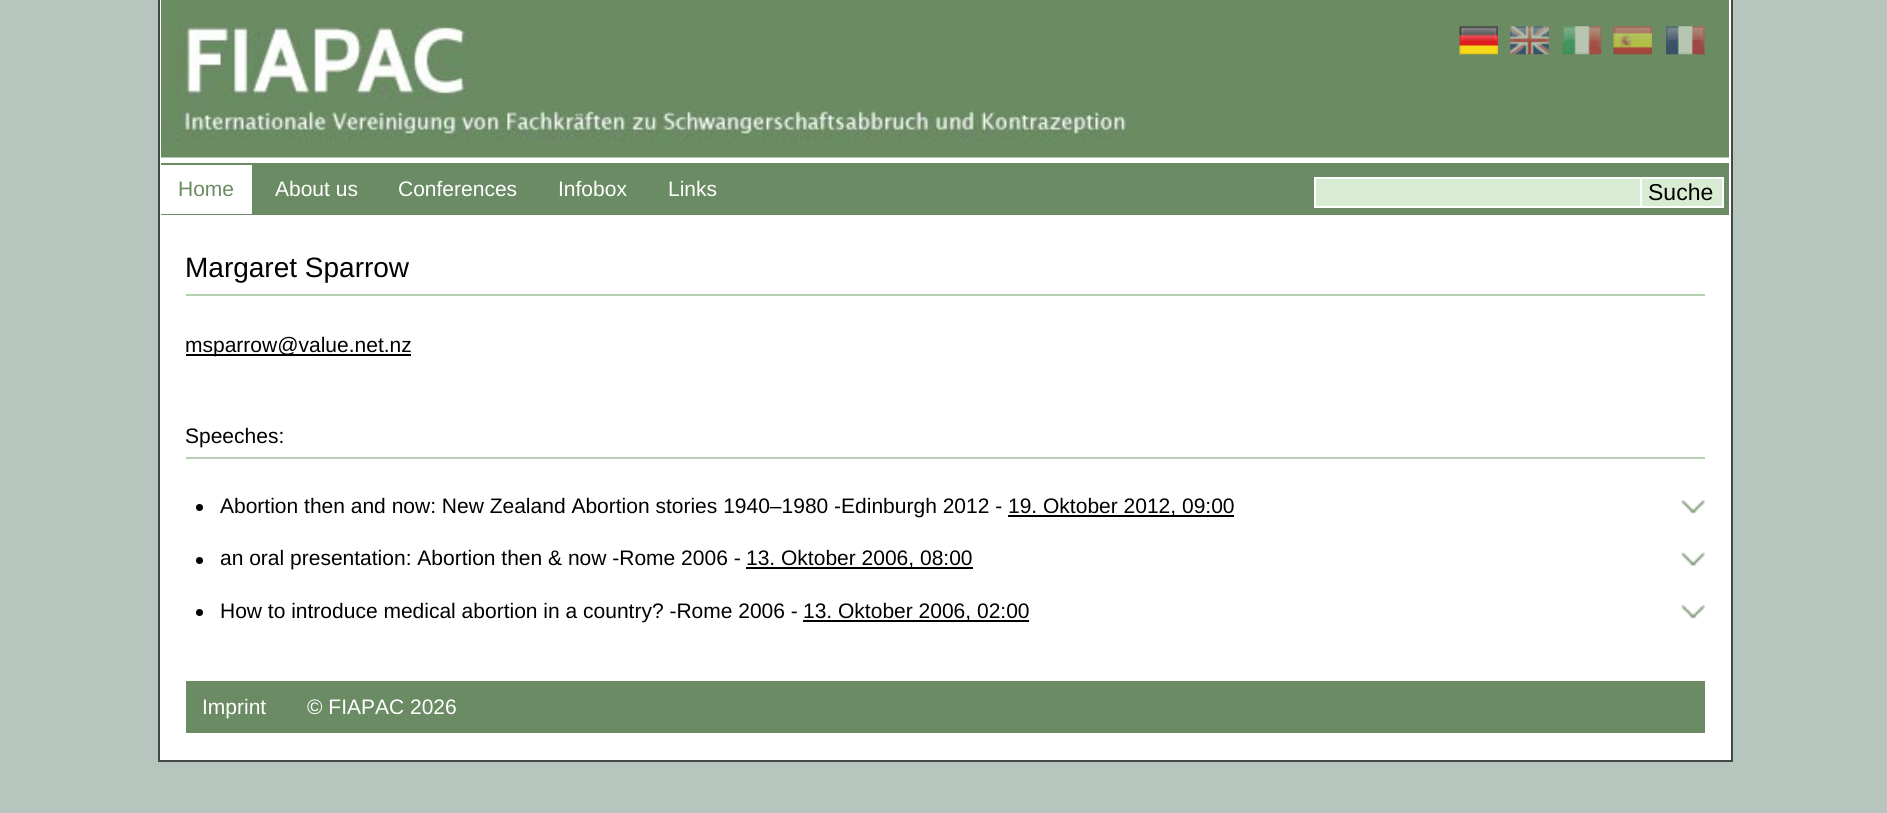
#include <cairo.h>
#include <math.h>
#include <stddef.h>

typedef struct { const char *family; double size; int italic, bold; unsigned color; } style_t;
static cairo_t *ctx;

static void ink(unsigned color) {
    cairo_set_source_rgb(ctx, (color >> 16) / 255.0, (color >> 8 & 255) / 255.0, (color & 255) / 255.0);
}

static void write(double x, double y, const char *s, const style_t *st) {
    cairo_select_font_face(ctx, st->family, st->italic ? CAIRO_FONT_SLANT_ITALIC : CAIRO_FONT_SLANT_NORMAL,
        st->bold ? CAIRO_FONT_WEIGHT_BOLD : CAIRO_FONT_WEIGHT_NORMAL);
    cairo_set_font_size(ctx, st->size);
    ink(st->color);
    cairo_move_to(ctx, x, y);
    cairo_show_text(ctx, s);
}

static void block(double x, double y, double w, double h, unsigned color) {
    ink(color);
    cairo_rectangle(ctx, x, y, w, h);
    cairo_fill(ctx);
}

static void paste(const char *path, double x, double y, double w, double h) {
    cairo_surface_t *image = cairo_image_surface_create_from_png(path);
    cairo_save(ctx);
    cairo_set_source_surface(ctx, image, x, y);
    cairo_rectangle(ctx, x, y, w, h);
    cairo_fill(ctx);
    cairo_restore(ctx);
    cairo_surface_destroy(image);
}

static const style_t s1 = {"Liberation Sans", 21, 0, 0, 0x6a8b63};
static const style_t s2 = {"Liberation Sans", 21, 0, 0, 0xffffff};
static const style_t s3 = {"Liberation Sans", 23, 0, 0, 0x000000};
static const style_t s4 = {"Liberation Sans", 28, 0, 0, 0x000000};
static const style_t s5 = {"Liberation Sans", 21, 0, 0, 0x000000};

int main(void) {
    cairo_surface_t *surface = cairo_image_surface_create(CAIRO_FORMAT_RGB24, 1887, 813);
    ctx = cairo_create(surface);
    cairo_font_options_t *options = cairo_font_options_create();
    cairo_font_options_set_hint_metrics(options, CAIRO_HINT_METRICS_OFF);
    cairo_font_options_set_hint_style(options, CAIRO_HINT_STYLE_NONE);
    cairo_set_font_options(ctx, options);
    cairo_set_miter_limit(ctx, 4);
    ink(0xb6c5bd);
    cairo_paint(ctx);
    block(160, 0, 1571, 760, 0xffffff);
    block(1731, 0, 2, 761, 0x434946);
    block(158, 760, 1575, 2, 0x434946);
    block(158, 0, 2, 761, 0x434946);
    paste("pic1.png", 161, 0, 1568, 158);
    paste("pic2.png", 1459, 26, 39, 29);
    paste("pic3.png", 1510, 26, 39, 29);
    paste("pic4.png", 1562, 26, 40, 29);
    paste("pic5.png", 1613, 26, 39, 29);
    paste("pic6.png", 1666, 26, 39, 29);
    block(161, 163, 1568, 52, 0x6a8b63);
    block(161, 165, 91, 49, 0xffffff);
    write(178, 196, "Home", &s1);
    write(275, 196, "About us", &s2);
    write(398, 196, "Conferences", &s2);
    write(558, 196, "Infobox", &s2);
    write(668, 196, "Links", &s2);
    ink(0xd8ecd4);
    cairo_rectangle(ctx, 1315, 178, 326, 29);
    cairo_fill_preserve(ctx);
    ink(0xffffff);
    cairo_stroke(ctx);
    ink(0xd8ecd4);
    cairo_rectangle(ctx, 1641, 178, 82, 29);
    cairo_fill_preserve(ctx);
    ink(0xffffff);
    cairo_stroke(ctx);
    write(1648, 200, "Suche", &s3);
    block(186, 294, 1519, 2, 0xb7cfb2);
    write(185, 277, "Margaret Sparrow", &s4);
    block(186, 354, 225, 2, 0x000000);
    write(185, 352, "msparrow@value.net.nz", &s5);
    block(186, 457, 1519, 2, 0xb7cfb2);
    write(185, 443, "Speeches:", &s5);
    paste("pic7.png", 1681, 500, 24, 14);
    cairo_arc(ctx, 199.5, 507.5, 3.5, 0, 2 * M_PI);
    cairo_fill(ctx);
    write(220, 513, "Abortion then and now: New Zealand Abortion stories 1940–1980 -Edinburgh 2012 -", &s5);
    block(1008, 515, 226, 2, 0x000000);
    write(1008, 513, "19. Oktober 2012, 09:00", &s5);
    paste("pic8.png", 1681, 552, 24, 14);
    cairo_arc(ctx, 199.5, 560.5, 3.5, 0, 2 * M_PI);
    cairo_fill(ctx);
    write(220, 565, "an oral presentation: Abortion then & now -Rome 2006 -", &s5);
    block(746, 567, 227, 2, 0x000000);
    write(746, 565, "13. Oktober 2006, 08:00", &s5);
    paste("pic7.png", 1681, 605, 24, 14);
    cairo_arc(ctx, 199.5, 612.5, 3.5, 0, 2 * M_PI);
    cairo_fill(ctx);
    write(220, 618, "How to introduce medical abortion in a country? -Rome 2006 -", &s5);
    block(803, 620, 226, 2, 0x000000);
    write(803, 618, "13. Oktober 2006, 02:00", &s5);
    block(186, 681, 1519, 52, 0x6a8b63);
    write(202, 714, "Imprint", &s2);
    write(307, 714, "© FIAPAC 2026", &s2);
    cairo_surface_write_to_png(surface, "screenshot.png");
    cairo_font_options_destroy(options);
    cairo_destroy(ctx);
    cairo_surface_destroy(surface);
    return 0;
}
